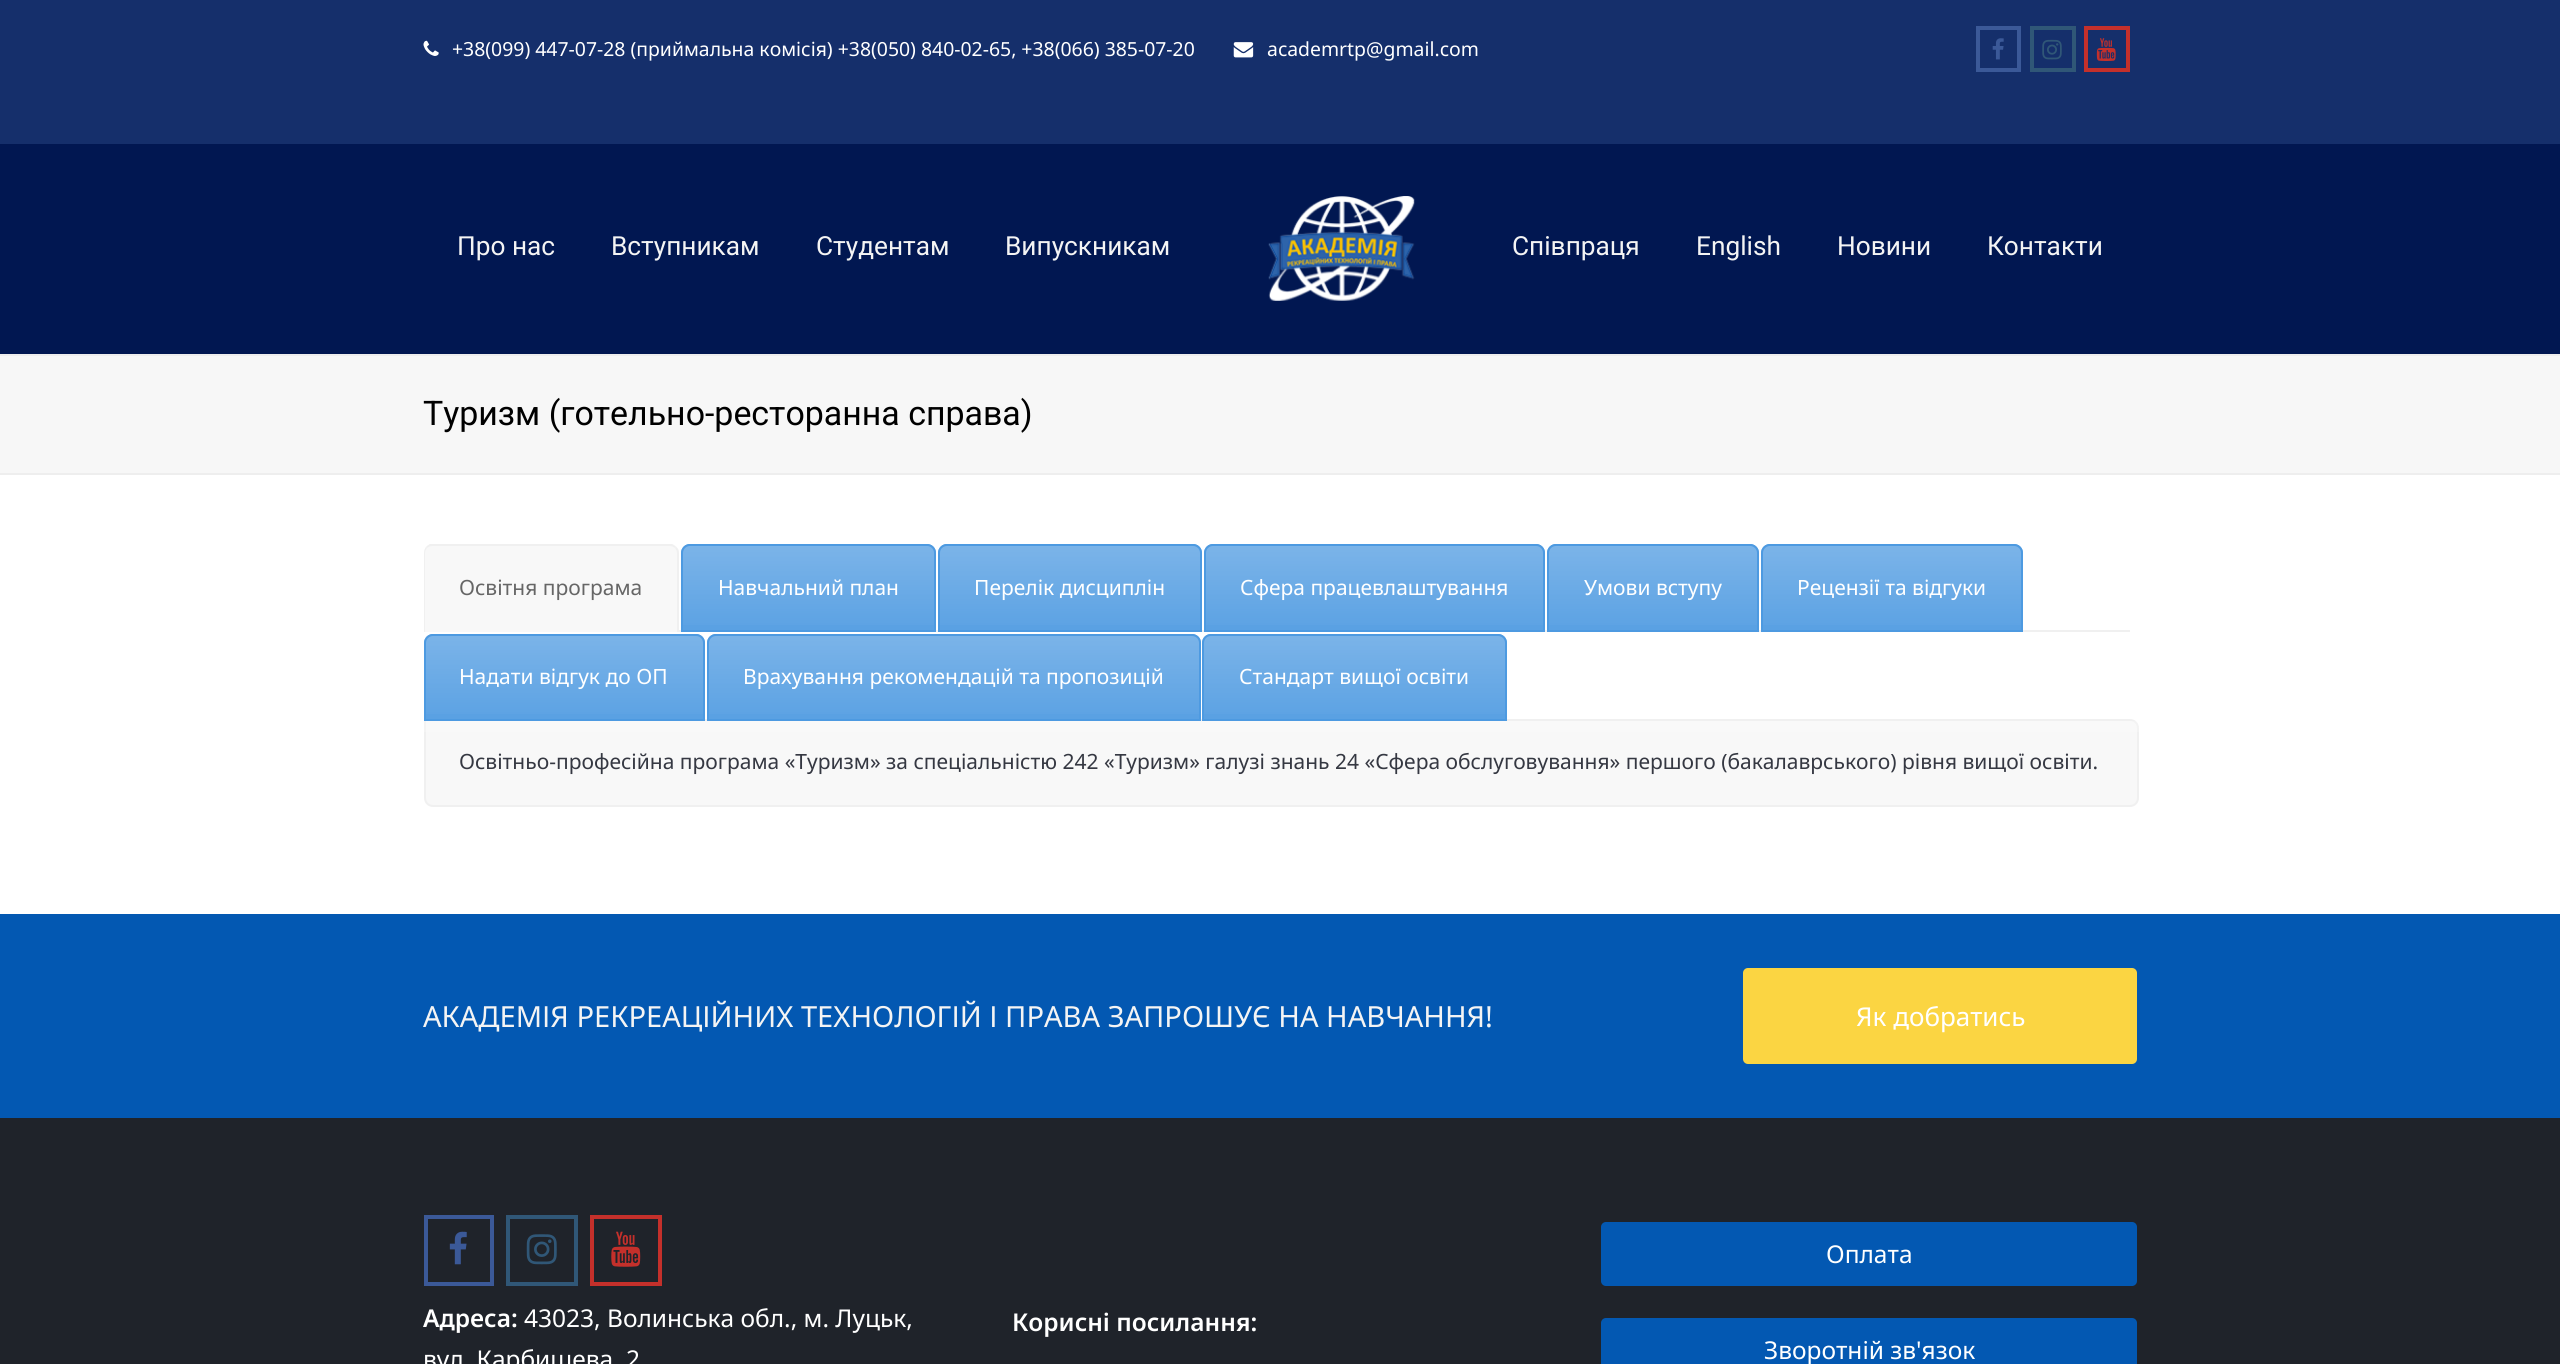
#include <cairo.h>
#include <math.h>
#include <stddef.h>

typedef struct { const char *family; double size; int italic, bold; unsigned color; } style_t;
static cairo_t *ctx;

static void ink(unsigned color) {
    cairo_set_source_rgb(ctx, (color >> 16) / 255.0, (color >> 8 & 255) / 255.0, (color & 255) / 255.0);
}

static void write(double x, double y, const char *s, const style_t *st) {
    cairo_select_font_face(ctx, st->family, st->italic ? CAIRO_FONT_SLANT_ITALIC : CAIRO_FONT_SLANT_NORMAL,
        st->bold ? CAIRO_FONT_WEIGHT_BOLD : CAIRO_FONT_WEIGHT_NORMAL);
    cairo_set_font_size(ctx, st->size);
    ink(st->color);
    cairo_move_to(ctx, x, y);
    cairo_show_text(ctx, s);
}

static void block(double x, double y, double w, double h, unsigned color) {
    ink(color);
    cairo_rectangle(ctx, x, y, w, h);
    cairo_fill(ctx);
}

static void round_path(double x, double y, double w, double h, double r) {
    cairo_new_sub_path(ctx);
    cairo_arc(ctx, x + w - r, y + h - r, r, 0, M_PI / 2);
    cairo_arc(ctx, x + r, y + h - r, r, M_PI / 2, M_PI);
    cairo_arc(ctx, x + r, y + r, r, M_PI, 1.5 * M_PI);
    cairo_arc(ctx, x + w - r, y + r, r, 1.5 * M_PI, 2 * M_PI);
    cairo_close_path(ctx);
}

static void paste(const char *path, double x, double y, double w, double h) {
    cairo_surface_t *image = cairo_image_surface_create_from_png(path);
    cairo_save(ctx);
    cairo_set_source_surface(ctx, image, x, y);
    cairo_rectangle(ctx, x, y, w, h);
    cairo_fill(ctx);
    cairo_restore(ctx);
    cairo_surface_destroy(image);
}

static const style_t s1 = {"Noto Sans", 19.4, 0, 0, 0xffffff};
static const style_t s2 = {"Roboto", 26.25, 0, 0, 0xf4f4f4};
static const style_t s3 = {"Roboto", 33.9, 0, 0, 0x000000};
static const style_t s4 = {"Noto Sans", 21, 0, 0, 0x666666};
static const style_t s5 = {"Noto Sans", 21, 0, 0, 0xffffff};
static const style_t s6 = {"Noto Sans", 21, 0, 0, 0x353842};
static const style_t s7 = {"Noto Sans", 29.1, 0, 0, 0xf4f4f4};
static const style_t s8 = {"Noto Sans", 26, 0, 0, 0xffffff};
static const style_t s9 = {"Noto Sans SemiBold", 24.5, 0, 0, 0xffffff};
static const style_t s10 = {"Noto Sans", 24.5, 0, 0, 0xffffff};

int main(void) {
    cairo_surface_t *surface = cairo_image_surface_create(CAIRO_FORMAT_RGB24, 2560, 1364);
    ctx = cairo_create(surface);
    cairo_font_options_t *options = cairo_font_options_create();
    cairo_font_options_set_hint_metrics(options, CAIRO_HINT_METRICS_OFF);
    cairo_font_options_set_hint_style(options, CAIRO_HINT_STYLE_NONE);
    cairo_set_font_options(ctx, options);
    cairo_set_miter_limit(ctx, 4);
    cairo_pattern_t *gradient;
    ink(0xffffff);
    cairo_paint(ctx);
    block(0, 0, 2560, 144, 0x152f6b);
    paste("pic1.png", 423, 40, 16, 16);
    write(452, 56, "+38(099) 447-07-28 (приймальна комісія) +38(050) 840-02-65, +38(066) 385-07-20", &s1);
    paste("pic2.png", 1233, 42, 21, 16);
    write(1267, 56, "academrtp@gmail.com", &s1);
    cairo_rectangle(ctx, 1978, 28, 41, 42);
    ink(0x3b5998);
    cairo_set_line_width(ctx, 4);
    cairo_stroke(ctx);
    paste("pic3.png", 1992, 38, 12, 22);
    cairo_rectangle(ctx, 2032, 28, 42, 42);
    ink(0x305777);
    cairo_stroke(ctx);
    paste("pic4.png", 2042, 39, 20, 21);
    cairo_rectangle(ctx, 2086, 28, 42, 42);
    ink(0xc4302b);
    cairo_stroke(ctx);
    paste("pic5.png", 2096, 38, 20, 23);
    block(0, 144, 2560, 210, 0x011751);
    write(457, 255, "Про нас", &s2);
    write(611, 255, "Вступникам", &s2);
    write(816, 255, "Студентам", &s2);
    write(1005, 255, "Випускникам", &s2);
    paste("pic6.png", 1268, 196, 147, 105);
    write(1512, 255, "Співпраця", &s2);
    write(1696, 255, "English", &s2);
    write(1837, 255, "Новини", &s2);
    write(1987, 255, "Контакти", &s2);
    block(0, 356, 2560, 117, 0xf7f7f7);
    block(0, 354, 2560, 2, 0xeeeeee);
    block(0, 473, 2560, 2, 0xeeeeee);
    write(423, 425, "Туризм (готельно-ресторанна справа)", &s3);
    ink(0xf8f8f8);
    cairo_new_path(ctx);
    cairo_move_to(ctx, 433, 544);
    cairo_line_to(ctx, 670, 544);
    cairo_curve_to(ctx, 675, 544, 679, 548, 679, 553);
    cairo_line_to(ctx, 679, 632);
    cairo_line_to(ctx, 424, 632);
    cairo_line_to(ctx, 424, 553);
    cairo_curve_to(ctx, 424, 548, 428, 544, 433, 544);
    cairo_close_path(ctx);
    cairo_fill(ctx);
    ink(0xf0f0f0);
    cairo_new_path(ctx);
    cairo_move_to(ctx, 432, 546);
    cairo_curve_to(ctx, 430, 546, 428, 547, 427, 548);
    cairo_line_to(ctx, 426, 547);
    cairo_curve_to(ctx, 427, 546, 428, 545, 430, 544);
    cairo_line_to(ctx, 672, 544);
    cairo_curve_to(ctx, 674, 545, 675, 546, 676, 547);
    cairo_line_to(ctx, 675, 548);
    cairo_curve_to(ctx, 674, 547, 672, 546, 670, 546);
    cairo_close_path(ctx);
    cairo_fill(ctx);
    cairo_new_path(ctx);
    cairo_move_to(ctx, 679, 632);
    cairo_line_to(ctx, 679, 553);
    cairo_curve_to(ctx, 679, 551, 678, 548, 676, 547);
    cairo_line_to(ctx, 675, 548);
    cairo_curve_to(ctx, 676, 549, 677, 551, 677, 553);
    cairo_line_to(ctx, 677, 630);
    cairo_close_path(ctx);
    cairo_fill(ctx);
    cairo_new_path(ctx);
    cairo_move_to(ctx, 424, 631);
    cairo_line_to(ctx, 424, 553);
    cairo_curve_to(ctx, 424, 551, 425, 548, 426, 547);
    cairo_line_to(ctx, 427, 548);
    cairo_curve_to(ctx, 426, 549, 425, 551, 425, 553);
    cairo_line_to(ctx, 425, 630);
    cairo_close_path(ctx);
    cairo_fill(ctx);
    write(459, 595, "Освітня програма", &s4);
    block(424, 630, 1, 2, 0xf0f0f0);
    block(677, 630, 1453, 2, 0xf0f0f0);
    ink(0x5aa1e3);
    cairo_new_path(ctx);
    cairo_move_to(ctx, 690, 544);
    cairo_line_to(ctx, 927, 544);
    cairo_curve_to(ctx, 932, 544, 936, 548, 936, 553);
    cairo_line_to(ctx, 936, 632);
    cairo_line_to(ctx, 681, 632);
    cairo_line_to(ctx, 681, 553);
    cairo_curve_to(ctx, 681, 548, 685, 544, 690, 544);
    cairo_close_path(ctx);
    cairo_fill(ctx);
    cairo_save(ctx);
    cairo_new_path(ctx);
    cairo_move_to(ctx, 690, 544);
    cairo_line_to(ctx, 927, 544);
    cairo_curve_to(ctx, 932, 544, 936, 548, 936, 553);
    cairo_line_to(ctx, 936, 632);
    cairo_line_to(ctx, 681, 632);
    cairo_line_to(ctx, 681, 553);
    cairo_curve_to(ctx, 681, 548, 685, 544, 690, 544);
    cairo_close_path(ctx);
    cairo_clip(ctx);
    gradient = cairo_pattern_create_linear(809, 546, 809, 630);
    cairo_pattern_add_color_stop_rgba(gradient, 0, 1, 1, 1, 0.2);
    cairo_pattern_add_color_stop_rgba(gradient, 1, 1, 1, 1, 0.01);
    cairo_set_source(ctx, gradient);
    cairo_pattern_destroy(gradient);
    cairo_rectangle(ctx, 681, 546, 255, 79);
    cairo_fill(ctx);
    cairo_restore(ctx);
    cairo_new_path(ctx);
    cairo_move_to(ctx, 690, 545);
    cairo_line_to(ctx, 927, 545);
    cairo_curve_to(ctx, 931.5, 545, 935, 548.5, 935, 553);
    cairo_line_to(ctx, 935, 631);
    cairo_line_to(ctx, 682, 631);
    cairo_line_to(ctx, 682, 553);
    cairo_curve_to(ctx, 682, 548.5, 685.5, 545, 690, 545);
    cairo_close_path(ctx);
    ink(0x4d9ae1);
    cairo_set_line_width(ctx, 2);
    cairo_stroke(ctx);
    write(718, 595, "Навчальний план", &s5);
    ink(0x5aa1e3);
    cairo_new_path(ctx);
    cairo_move_to(ctx, 947, 544);
    cairo_line_to(ctx, 1193, 544);
    cairo_curve_to(ctx, 1198, 544, 1202, 548, 1202, 553);
    cairo_line_to(ctx, 1202, 632);
    cairo_line_to(ctx, 938, 632);
    cairo_line_to(ctx, 938, 553);
    cairo_curve_to(ctx, 938, 548, 942, 544, 947, 544);
    cairo_close_path(ctx);
    cairo_fill(ctx);
    cairo_save(ctx);
    cairo_new_path(ctx);
    cairo_move_to(ctx, 947, 544);
    cairo_line_to(ctx, 1193, 544);
    cairo_curve_to(ctx, 1198, 544, 1202, 548, 1202, 553);
    cairo_line_to(ctx, 1202, 632);
    cairo_line_to(ctx, 938, 632);
    cairo_line_to(ctx, 938, 553);
    cairo_curve_to(ctx, 938, 548, 942, 544, 947, 544);
    cairo_close_path(ctx);
    cairo_clip(ctx);
    gradient = cairo_pattern_create_linear(1070, 546, 1070, 630);
    cairo_pattern_add_color_stop_rgba(gradient, 0, 1, 1, 1, 0.2);
    cairo_pattern_add_color_stop_rgba(gradient, 1, 1, 1, 1, 0.01);
    cairo_set_source(ctx, gradient);
    cairo_pattern_destroy(gradient);
    cairo_rectangle(ctx, 938, 546, 264, 79);
    cairo_fill(ctx);
    cairo_restore(ctx);
    cairo_new_path(ctx);
    cairo_move_to(ctx, 947, 545);
    cairo_line_to(ctx, 1193, 545);
    cairo_curve_to(ctx, 1197.5, 545, 1201, 548.5, 1201, 553);
    cairo_line_to(ctx, 1201, 631);
    cairo_line_to(ctx, 939, 631);
    cairo_line_to(ctx, 939, 553);
    cairo_curve_to(ctx, 939, 548.5, 942.5, 545, 947, 545);
    cairo_close_path(ctx);
    ink(0x4d9ae1);
    cairo_stroke(ctx);
    write(974, 595, "Перелік дисциплін", &s5);
    ink(0x5aa1e3);
    cairo_new_path(ctx);
    cairo_move_to(ctx, 1213, 544);
    cairo_line_to(ctx, 1536, 544);
    cairo_curve_to(ctx, 1541, 544, 1545, 548, 1545, 553);
    cairo_line_to(ctx, 1545, 632);
    cairo_line_to(ctx, 1204, 632);
    cairo_line_to(ctx, 1204, 553);
    cairo_curve_to(ctx, 1204, 548, 1208, 544, 1213, 544);
    cairo_close_path(ctx);
    cairo_fill(ctx);
    cairo_save(ctx);
    cairo_new_path(ctx);
    cairo_move_to(ctx, 1213, 544);
    cairo_line_to(ctx, 1536, 544);
    cairo_curve_to(ctx, 1541, 544, 1545, 548, 1545, 553);
    cairo_line_to(ctx, 1545, 632);
    cairo_line_to(ctx, 1204, 632);
    cairo_line_to(ctx, 1204, 553);
    cairo_curve_to(ctx, 1204, 548, 1208, 544, 1213, 544);
    cairo_close_path(ctx);
    cairo_clip(ctx);
    gradient = cairo_pattern_create_linear(1375, 546, 1375, 630);
    cairo_pattern_add_color_stop_rgba(gradient, 0, 1, 1, 1, 0.2);
    cairo_pattern_add_color_stop_rgba(gradient, 1, 1, 1, 1, 0.01);
    cairo_set_source(ctx, gradient);
    cairo_pattern_destroy(gradient);
    cairo_rectangle(ctx, 1204, 546, 341, 79);
    cairo_fill(ctx);
    cairo_restore(ctx);
    cairo_new_path(ctx);
    cairo_move_to(ctx, 1213, 545);
    cairo_line_to(ctx, 1536, 545);
    cairo_curve_to(ctx, 1540.5, 545, 1544, 548.5, 1544, 553);
    cairo_line_to(ctx, 1544, 631);
    cairo_line_to(ctx, 1205, 631);
    cairo_line_to(ctx, 1205, 553);
    cairo_curve_to(ctx, 1205, 548.5, 1208.5, 545, 1213, 545);
    cairo_close_path(ctx);
    ink(0x4d9ae1);
    cairo_stroke(ctx);
    write(1240, 595, "Сфера працевлаштування", &s5);
    ink(0x5aa1e3);
    cairo_new_path(ctx);
    cairo_move_to(ctx, 1556, 544);
    cairo_line_to(ctx, 1750, 544);
    cairo_curve_to(ctx, 1755, 544, 1759, 548, 1759, 553);
    cairo_line_to(ctx, 1759, 632);
    cairo_line_to(ctx, 1547, 632);
    cairo_line_to(ctx, 1547, 553);
    cairo_curve_to(ctx, 1547, 548, 1551, 544, 1556, 544);
    cairo_close_path(ctx);
    cairo_fill(ctx);
    cairo_save(ctx);
    cairo_new_path(ctx);
    cairo_move_to(ctx, 1556, 544);
    cairo_line_to(ctx, 1750, 544);
    cairo_curve_to(ctx, 1755, 544, 1759, 548, 1759, 553);
    cairo_line_to(ctx, 1759, 632);
    cairo_line_to(ctx, 1547, 632);
    cairo_line_to(ctx, 1547, 553);
    cairo_curve_to(ctx, 1547, 548, 1551, 544, 1556, 544);
    cairo_close_path(ctx);
    cairo_clip(ctx);
    gradient = cairo_pattern_create_linear(1653, 546, 1653, 630);
    cairo_pattern_add_color_stop_rgba(gradient, 0, 1, 1, 1, 0.2);
    cairo_pattern_add_color_stop_rgba(gradient, 1, 1, 1, 1, 0.01);
    cairo_set_source(ctx, gradient);
    cairo_pattern_destroy(gradient);
    cairo_rectangle(ctx, 1547, 546, 212, 79);
    cairo_fill(ctx);
    cairo_restore(ctx);
    cairo_new_path(ctx);
    cairo_move_to(ctx, 1556, 545);
    cairo_line_to(ctx, 1750, 545);
    cairo_curve_to(ctx, 1754.5, 545, 1758, 548.5, 1758, 553);
    cairo_line_to(ctx, 1758, 631);
    cairo_line_to(ctx, 1548, 631);
    cairo_line_to(ctx, 1548, 553);
    cairo_curve_to(ctx, 1548, 548.5, 1551.5, 545, 1556, 545);
    cairo_close_path(ctx);
    ink(0x4d9ae1);
    cairo_stroke(ctx);
    write(1584, 595, "Умови вступу", &s5);
    ink(0x5aa1e3);
    cairo_new_path(ctx);
    cairo_move_to(ctx, 1770, 544);
    cairo_line_to(ctx, 2014, 544);
    cairo_curve_to(ctx, 2019, 544, 2023, 548, 2023, 553);
    cairo_line_to(ctx, 2023, 632);
    cairo_line_to(ctx, 1761, 632);
    cairo_line_to(ctx, 1761, 553);
    cairo_curve_to(ctx, 1761, 548, 1765, 544, 1770, 544);
    cairo_close_path(ctx);
    cairo_fill(ctx);
    cairo_save(ctx);
    cairo_new_path(ctx);
    cairo_move_to(ctx, 1770, 544);
    cairo_line_to(ctx, 2014, 544);
    cairo_curve_to(ctx, 2019, 544, 2023, 548, 2023, 553);
    cairo_line_to(ctx, 2023, 632);
    cairo_line_to(ctx, 1761, 632);
    cairo_line_to(ctx, 1761, 553);
    cairo_curve_to(ctx, 1761, 548, 1765, 544, 1770, 544);
    cairo_close_path(ctx);
    cairo_clip(ctx);
    gradient = cairo_pattern_create_linear(1892, 546, 1892, 630);
    cairo_pattern_add_color_stop_rgba(gradient, 0, 1, 1, 1, 0.2);
    cairo_pattern_add_color_stop_rgba(gradient, 1, 1, 1, 1, 0.01);
    cairo_set_source(ctx, gradient);
    cairo_pattern_destroy(gradient);
    cairo_rectangle(ctx, 1761, 546, 262, 79);
    cairo_fill(ctx);
    cairo_restore(ctx);
    cairo_new_path(ctx);
    cairo_move_to(ctx, 1770, 545);
    cairo_line_to(ctx, 2014, 545);
    cairo_curve_to(ctx, 2018.5, 545, 2022, 548.5, 2022, 553);
    cairo_line_to(ctx, 2022, 631);
    cairo_line_to(ctx, 1762, 631);
    cairo_line_to(ctx, 1762, 553);
    cairo_curve_to(ctx, 1762, 548.5, 1765.5, 545, 1770, 545);
    cairo_close_path(ctx);
    ink(0x4d9ae1);
    cairo_stroke(ctx);
    write(1797, 595, "Рецензії та відгуки", &s5);
    ink(0xf8f8f8);
    cairo_new_path(ctx);
    cairo_move_to(ctx, 425, 720);
    cairo_line_to(ctx, 2130, 720);
    cairo_curve_to(ctx, 2134.5, 720, 2138, 723.5, 2138, 728);
    cairo_line_to(ctx, 2138, 798);
    cairo_curve_to(ctx, 2138, 802.5, 2134.5, 806, 2130, 806);
    cairo_line_to(ctx, 433, 806);
    cairo_curve_to(ctx, 428.5, 806, 425, 802.5, 425, 798);
    cairo_close_path(ctx);
    cairo_fill_preserve(ctx);
    ink(0xf0f0f0);
    cairo_stroke(ctx);
    ink(0x5aa1e3);
    cairo_new_path(ctx);
    cairo_move_to(ctx, 433, 634);
    cairo_line_to(ctx, 696, 634);
    cairo_curve_to(ctx, 701, 634, 705, 638, 705, 643);
    cairo_line_to(ctx, 705, 721);
    cairo_line_to(ctx, 424, 721);
    cairo_line_to(ctx, 424, 643);
    cairo_curve_to(ctx, 424, 638, 428, 634, 433, 634);
    cairo_close_path(ctx);
    cairo_fill(ctx);
    cairo_save(ctx);
    cairo_new_path(ctx);
    cairo_move_to(ctx, 433, 634);
    cairo_line_to(ctx, 696, 634);
    cairo_curve_to(ctx, 701, 634, 705, 638, 705, 643);
    cairo_line_to(ctx, 705, 721);
    cairo_line_to(ctx, 424, 721);
    cairo_line_to(ctx, 424, 643);
    cairo_curve_to(ctx, 424, 638, 428, 634, 433, 634);
    cairo_close_path(ctx);
    cairo_clip(ctx);
    gradient = cairo_pattern_create_linear(564, 635, 564, 719);
    cairo_pattern_add_color_stop_rgba(gradient, 0, 1, 1, 1, 0.2);
    cairo_pattern_add_color_stop_rgba(gradient, 1, 1, 1, 1, 0.01);
    cairo_set_source(ctx, gradient);
    cairo_pattern_destroy(gradient);
    cairo_rectangle(ctx, 424, 635, 281, 79);
    cairo_fill(ctx);
    cairo_restore(ctx);
    cairo_new_path(ctx);
    cairo_move_to(ctx, 433, 635);
    cairo_line_to(ctx, 696, 635);
    cairo_curve_to(ctx, 700.5, 635, 704, 638.5, 704, 643);
    cairo_line_to(ctx, 704, 720);
    cairo_line_to(ctx, 425, 720);
    cairo_line_to(ctx, 425, 643);
    cairo_curve_to(ctx, 425, 638.5, 428.5, 635, 433, 635);
    cairo_close_path(ctx);
    ink(0x4d9ae1);
    cairo_stroke(ctx);
    write(459, 684, "Надати відгук до ОП", &s5);
    ink(0x5aa1e3);
    cairo_new_path(ctx);
    cairo_move_to(ctx, 716, 634);
    cairo_line_to(ctx, 1192, 634);
    cairo_curve_to(ctx, 1197, 634, 1201, 638, 1201, 643);
    cairo_line_to(ctx, 1201, 721);
    cairo_line_to(ctx, 707, 721);
    cairo_line_to(ctx, 707, 643);
    cairo_curve_to(ctx, 707, 638, 711, 634, 716, 634);
    cairo_close_path(ctx);
    cairo_fill(ctx);
    cairo_save(ctx);
    cairo_new_path(ctx);
    cairo_move_to(ctx, 716, 634);
    cairo_line_to(ctx, 1192, 634);
    cairo_curve_to(ctx, 1197, 634, 1201, 638, 1201, 643);
    cairo_line_to(ctx, 1201, 721);
    cairo_line_to(ctx, 707, 721);
    cairo_line_to(ctx, 707, 643);
    cairo_curve_to(ctx, 707, 638, 711, 634, 716, 634);
    cairo_close_path(ctx);
    cairo_clip(ctx);
    gradient = cairo_pattern_create_linear(954, 635, 954, 719);
    cairo_pattern_add_color_stop_rgba(gradient, 0, 1, 1, 1, 0.2);
    cairo_pattern_add_color_stop_rgba(gradient, 1, 1, 1, 1, 0.01);
    cairo_set_source(ctx, gradient);
    cairo_pattern_destroy(gradient);
    cairo_rectangle(ctx, 707, 635, 494, 79);
    cairo_fill(ctx);
    cairo_restore(ctx);
    cairo_new_path(ctx);
    cairo_move_to(ctx, 716, 635);
    cairo_line_to(ctx, 1192, 635);
    cairo_curve_to(ctx, 1196.5, 635, 1200, 638.5, 1200, 643);
    cairo_line_to(ctx, 1200, 720);
    cairo_line_to(ctx, 708, 720);
    cairo_line_to(ctx, 708, 643);
    cairo_curve_to(ctx, 708, 638.5, 711.5, 635, 716, 635);
    cairo_close_path(ctx);
    ink(0x4d9ae1);
    cairo_stroke(ctx);
    write(743, 684, "Врахування рекомендацій та пропозицій", &s5);
    ink(0x5aa1e3);
    cairo_new_path(ctx);
    cairo_move_to(ctx, 1211, 634);
    cairo_line_to(ctx, 1498, 634);
    cairo_curve_to(ctx, 1503, 634, 1507, 638, 1507, 643);
    cairo_line_to(ctx, 1507, 721);
    cairo_line_to(ctx, 1202, 721);
    cairo_line_to(ctx, 1202, 643);
    cairo_curve_to(ctx, 1202, 638, 1206, 634, 1211, 634);
    cairo_close_path(ctx);
    cairo_fill(ctx);
    cairo_save(ctx);
    cairo_new_path(ctx);
    cairo_move_to(ctx, 1211, 634);
    cairo_line_to(ctx, 1498, 634);
    cairo_curve_to(ctx, 1503, 634, 1507, 638, 1507, 643);
    cairo_line_to(ctx, 1507, 721);
    cairo_line_to(ctx, 1202, 721);
    cairo_line_to(ctx, 1202, 643);
    cairo_curve_to(ctx, 1202, 638, 1206, 634, 1211, 634);
    cairo_close_path(ctx);
    cairo_clip(ctx);
    gradient = cairo_pattern_create_linear(1355, 635, 1355, 719);
    cairo_pattern_add_color_stop_rgba(gradient, 0, 1, 1, 1, 0.2);
    cairo_pattern_add_color_stop_rgba(gradient, 1, 1, 1, 1, 0.01);
    cairo_set_source(ctx, gradient);
    cairo_pattern_destroy(gradient);
    cairo_rectangle(ctx, 1202, 635, 305, 79);
    cairo_fill(ctx);
    cairo_restore(ctx);
    cairo_new_path(ctx);
    cairo_move_to(ctx, 1211, 635);
    cairo_line_to(ctx, 1498, 635);
    cairo_curve_to(ctx, 1502.5, 635, 1506, 638.5, 1506, 643);
    cairo_line_to(ctx, 1506, 720);
    cairo_line_to(ctx, 1203, 720);
    cairo_line_to(ctx, 1203, 643);
    cairo_curve_to(ctx, 1203, 638.5, 1206.5, 635, 1211, 635);
    cairo_close_path(ctx);
    ink(0x4d9ae1);
    cairo_stroke(ctx);
    write(1239, 684, "Стандарт вищої освіти", &s5);
    gradient = cairo_pattern_create_linear(1281, 721, 1281, 805);
    cairo_pattern_add_color_stop_rgba(gradient, 0, 1, 1, 1, 0.2);
    cairo_pattern_add_color_stop_rgba(gradient, 1, 1, 1, 1, 0.01);
    cairo_set_source(ctx, gradient);
    cairo_pattern_destroy(gradient);
    cairo_rectangle(ctx, 424, 721, 1715, 11);
    cairo_fill(ctx);
    write(459, 769, "Освітньо-професійна програма «Туризм» за спеціальністю 242 «Туризм» галузі знань 24 «Сфера обслуговування» першого (бакалаврського) рівня вищої освіти.", &s6);
    block(0, 914, 2560, 204, 0x0358b2);
    write(423, 1027, "АКАДЕМІЯ РЕКРЕАЦІЙНИХ ТЕХНОЛОГІЙ І ПРАВА ЗАПРОШУЄ НА НАВЧАННЯ!", &s7);
    ink(0xfbd542);
    round_path(1743, 968, 394, 96, 5);
    cairo_fill(ctx);
    write(1856, 1026, "Як добратись", &s8);
    block(0, 1118, 2560, 246, 0x1f232a);
    cairo_rectangle(ctx, 426, 1217, 66, 67);
    ink(0x3b5998);
    cairo_set_line_width(ctx, 4);
    cairo_stroke(ctx);
    paste("pic7.png", 449, 1231, 18, 34);
    cairo_rectangle(ctx, 508, 1217, 68, 67);
    ink(0x305777);
    cairo_stroke(ctx);
    paste("pic8.png", 526, 1234, 31, 31);
    cairo_rectangle(ctx, 592, 1217, 68, 67);
    ink(0xc4302b);
    cairo_stroke(ctx);
    paste("pic9.png", 611, 1231, 30, 36);
    write(423, 1327, "Адреса:", &s9);
    write(524, 1327, "43023, Волинська обл., м. Луцьк,", &s10);
    write(423, 1368, "вул. Карбишева, 2", &s10);
    write(1012, 1331, "Корисні посилання:", &s9);
    ink(0x0358b2);
    round_path(1601, 1222, 536, 64, 5);
    cairo_fill(ctx);
    write(1826, 1263, "Оплата", &s10);
    ink(0x0358b2);
    round_path(1601, 1318, 536, 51, 5);
    cairo_fill(ctx);
    write(1764, 1359, "Зворотній зв'язок", &s10);
    cairo_surface_write_to_png(surface, "screenshot.png");
    cairo_font_options_destroy(options);
    cairo_destroy(ctx);
    cairo_surface_destroy(surface);
    return 0;
}
